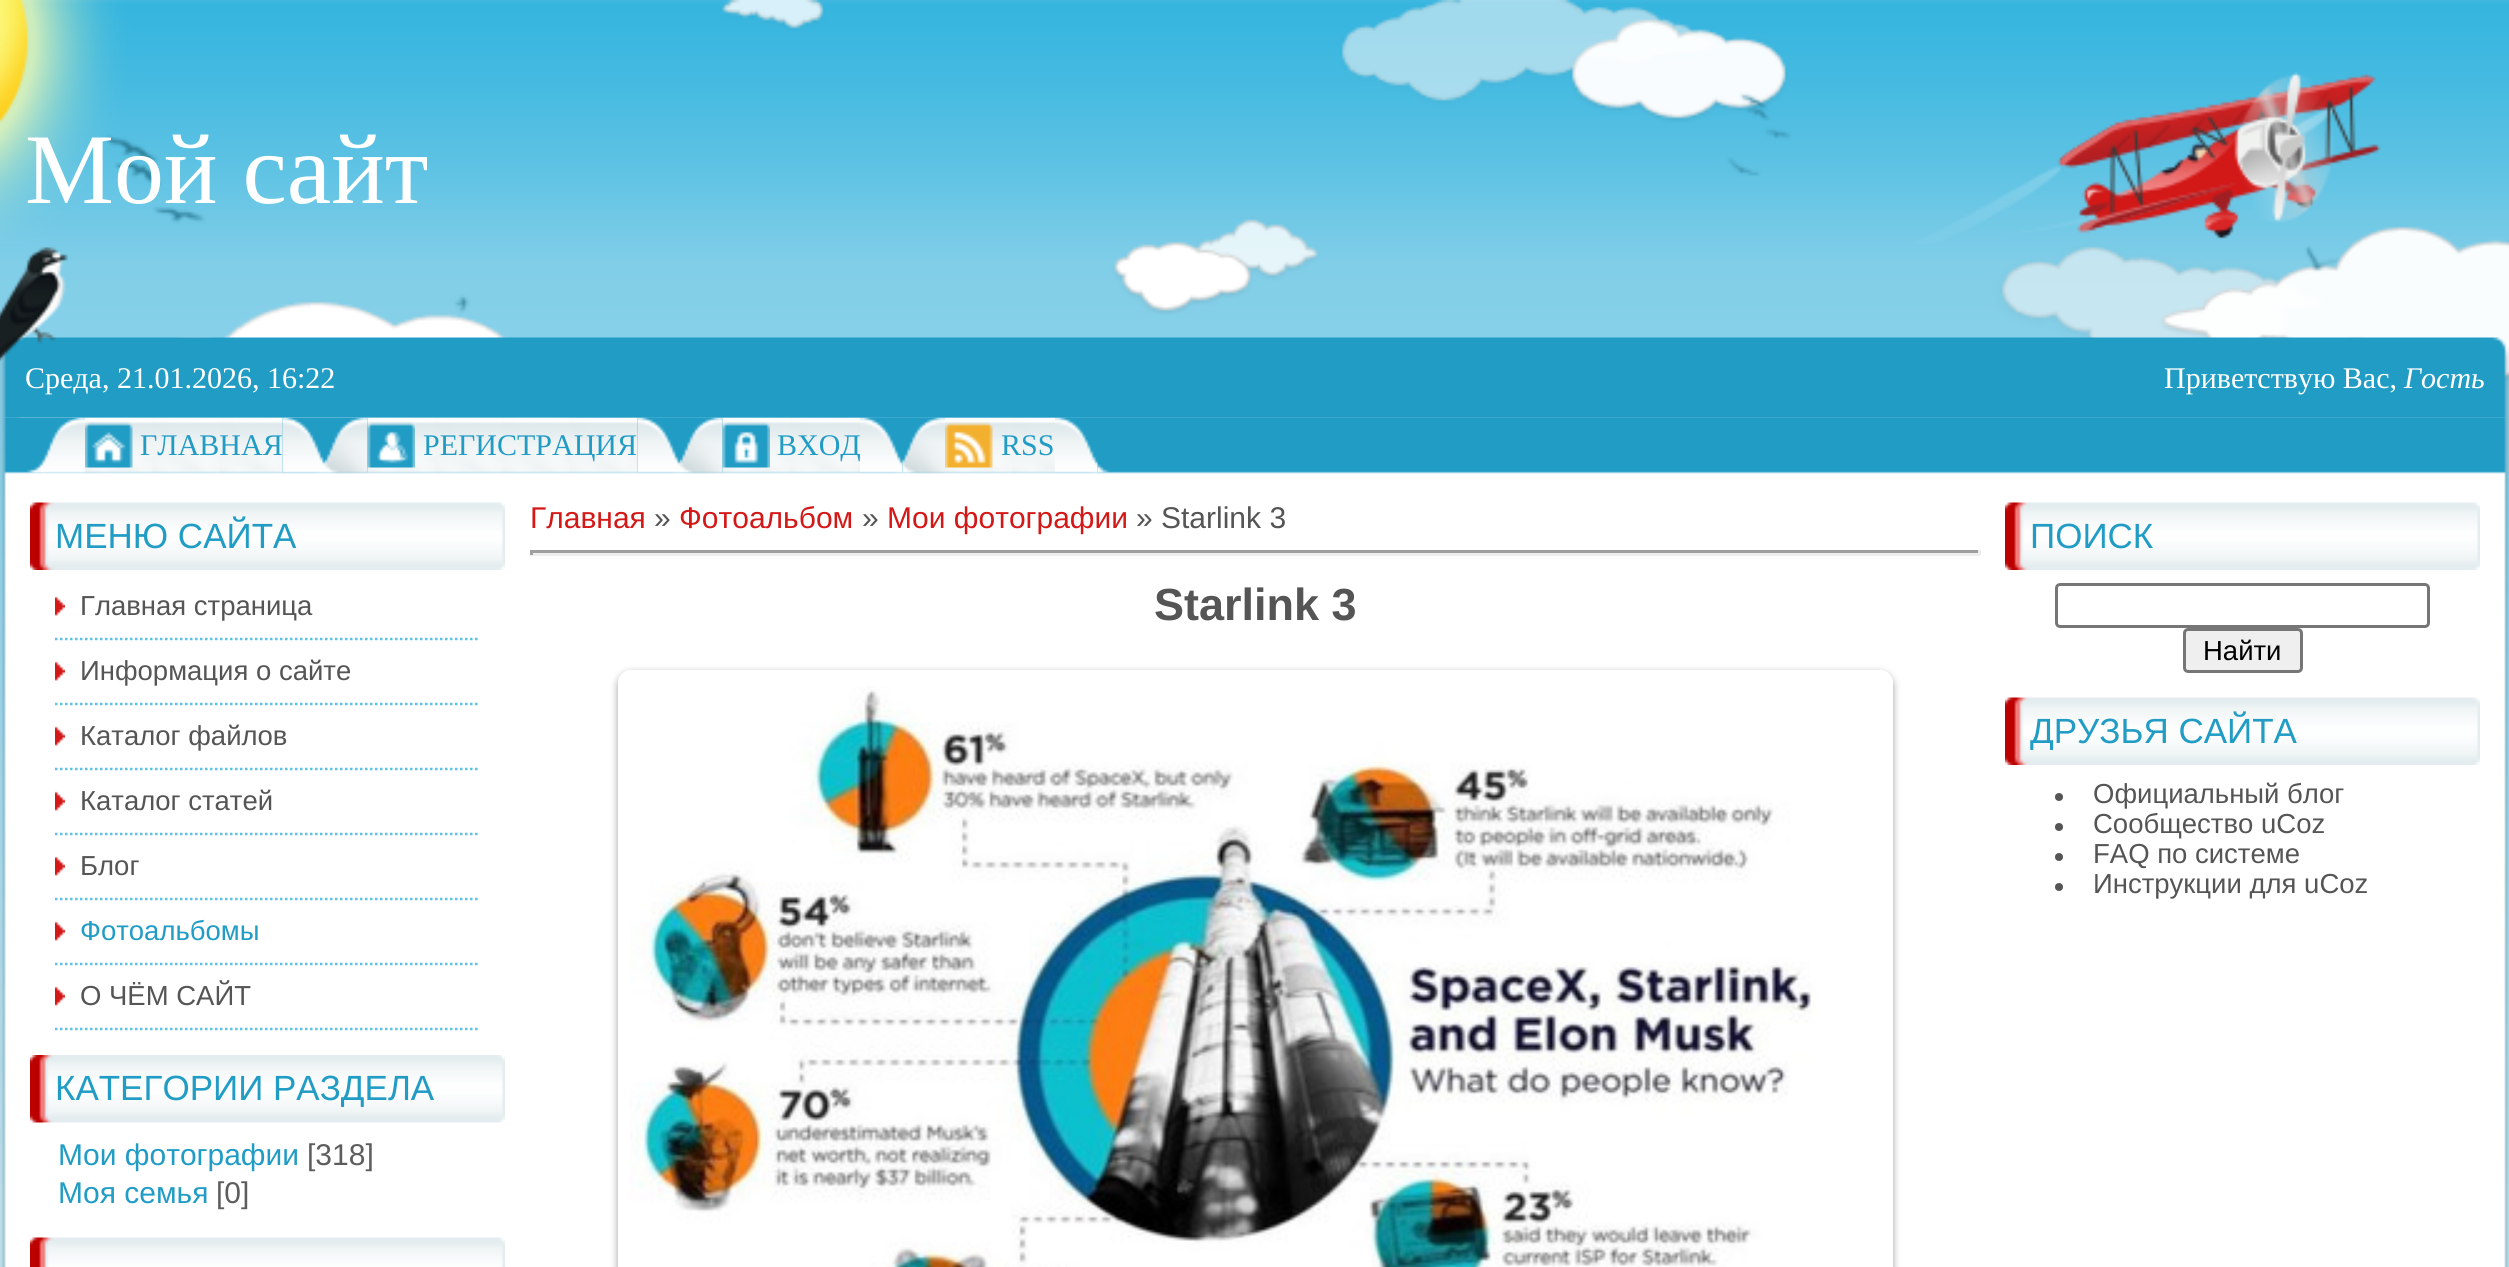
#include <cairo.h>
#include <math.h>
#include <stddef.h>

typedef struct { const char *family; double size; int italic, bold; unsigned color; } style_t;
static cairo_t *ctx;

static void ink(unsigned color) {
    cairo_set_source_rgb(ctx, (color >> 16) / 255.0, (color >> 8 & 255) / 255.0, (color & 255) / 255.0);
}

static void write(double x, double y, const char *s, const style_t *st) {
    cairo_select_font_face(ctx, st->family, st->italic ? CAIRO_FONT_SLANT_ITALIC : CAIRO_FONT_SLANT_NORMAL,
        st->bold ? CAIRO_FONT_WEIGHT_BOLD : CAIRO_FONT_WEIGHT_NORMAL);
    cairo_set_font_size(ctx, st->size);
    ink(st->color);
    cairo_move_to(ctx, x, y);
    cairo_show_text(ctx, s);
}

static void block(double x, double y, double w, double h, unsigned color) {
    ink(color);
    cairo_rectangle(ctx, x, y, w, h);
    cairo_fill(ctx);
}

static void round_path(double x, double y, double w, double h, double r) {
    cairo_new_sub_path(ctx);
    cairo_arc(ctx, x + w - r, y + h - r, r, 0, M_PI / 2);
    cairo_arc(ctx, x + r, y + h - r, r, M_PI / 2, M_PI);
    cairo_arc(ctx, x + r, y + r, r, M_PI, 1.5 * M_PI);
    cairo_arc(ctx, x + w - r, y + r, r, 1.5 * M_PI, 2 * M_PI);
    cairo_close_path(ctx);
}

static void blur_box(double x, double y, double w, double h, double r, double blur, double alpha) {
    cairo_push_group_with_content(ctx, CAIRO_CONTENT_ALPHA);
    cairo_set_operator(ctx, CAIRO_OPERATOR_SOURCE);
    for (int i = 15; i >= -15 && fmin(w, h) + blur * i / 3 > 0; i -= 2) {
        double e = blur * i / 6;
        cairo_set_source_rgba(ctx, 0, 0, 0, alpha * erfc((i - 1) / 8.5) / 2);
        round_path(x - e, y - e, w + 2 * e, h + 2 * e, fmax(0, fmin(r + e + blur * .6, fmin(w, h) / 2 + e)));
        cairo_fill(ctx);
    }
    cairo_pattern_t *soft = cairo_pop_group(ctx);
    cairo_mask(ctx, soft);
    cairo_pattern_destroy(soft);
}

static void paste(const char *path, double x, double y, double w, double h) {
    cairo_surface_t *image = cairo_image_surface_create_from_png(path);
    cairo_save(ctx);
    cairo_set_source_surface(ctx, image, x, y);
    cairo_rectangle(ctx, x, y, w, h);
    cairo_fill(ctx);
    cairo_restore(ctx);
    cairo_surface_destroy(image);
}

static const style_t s1 = {"Liberation Serif", 100, 0, 0, 0xffffff};
static const style_t s2 = {"Liberation Serif", 30, 0, 0, 0xffffff};
static const style_t s3 = {"Liberation Serif", 30, 1, 0, 0xffffff};
static const style_t s4 = {"Liberation Serif", 30, 0, 0, 0x219cc5};
static const style_t s5 = {"Liberation Sans", 35, 0, 0, 0x219cc5};
static const style_t s6 = {"Liberation Sans", 27.5, 0, 0, 0x555555};
static const style_t s7 = {"Liberation Sans", 27.5, 0, 0, 0x219cc5};
static const style_t s8 = {"Liberation Sans", 30, 0, 0, 0x219cc5};
static const style_t s9 = {"Liberation Sans", 30, 0, 0, 0x5d5d5d};
static const style_t s10 = {"Liberation Sans", 30, 0, 0, 0xd21918};
static const style_t s11 = {"Liberation Sans", 30, 0, 0, 0x555555};
static const style_t s12 = {"Liberation Sans", 45, 0, 1, 0x555555};
static const style_t s13 = {"Liberation Sans", 27.5, 0, 0, 0x000000};

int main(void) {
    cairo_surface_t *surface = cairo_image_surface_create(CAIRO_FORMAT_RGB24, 2509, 1267);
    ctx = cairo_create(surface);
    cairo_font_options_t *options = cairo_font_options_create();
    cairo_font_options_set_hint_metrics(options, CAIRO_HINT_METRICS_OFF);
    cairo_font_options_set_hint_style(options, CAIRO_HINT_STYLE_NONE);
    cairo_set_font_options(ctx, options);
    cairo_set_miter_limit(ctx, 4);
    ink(0xcbe7f1);
    cairo_paint(ctx);
    paste("pic1.png", 0, 0, 2509, 1184);
    paste("pic2.png", 0, 0, 2381, 244);
    write(25, 203, "Мой сайт", &s1);
    paste("pic5.png", 0, 417, 2509, 58);
    paste("pic6.png", 27, 417, 58, 57);
    paste("pic7.png", 85, 417, 198, 57);
    paste("pic9.png", 282, 417, 43, 57);
    paste("pic10.png", 325, 417, 43, 57);
    paste("pic11.png", 367, 417, 271, 57);
    paste("pic13.png", 637, 417, 43, 57);
    paste("pic14.png", 680, 417, 43, 57);
    paste("pic15.png", 722, 417, 138, 57);
    paste("pic17.png", 860, 417, 43, 57);
    paste("pic18.png", 902, 417, 43, 57);
    paste("pic19.png", 945, 417, 110, 57);
    paste("pic21.png", 1055, 417, 43, 57);
    paste("pic3.png", 0, 337, 2509, 81);
    paste("pic4.png", 0, 247, 68, 115);
    write(25, 388, "Среда, 21.01.2026, 16:22", &s2);
    write(2164, 388, "Приветствую Вас,", &s2);
    write(2404, 388, "Гость", &s3);
    paste("pic8.png", 85, 422, 48, 46);
    write(140, 455, "ГЛАВНАЯ", &s4);
    paste("pic12.png", 367, 422, 48, 46);
    write(423, 455, "РЕГИСТРАЦИЯ", &s4);
    paste("pic16.png", 722, 422, 48, 46);
    write(777, 455, "ВХОД", &s4);
    paste("pic20.png", 945, 422, 48, 46);
    write(1001, 455, "RSS", &s4);
    paste("pic22.png", 1097, 464, 13, 9);
    paste("pic23.png", 0, 475, 2509, 792);
    paste("pic24.png", 30, 502, 475, 68);
    write(55, 548, "МЕНЮ САЙТА", &s5);
    cairo_new_path(ctx);
    cairo_move_to(ctx, 55, 639);
    cairo_line_to(ctx, 480, 639);
    ink(0x5ec2e4);
    cairo_set_line_width(ctx, 2.5);
    cairo_set_dash(ctx, (double[]){2.5, 2.5}, 2, 0);
    cairo_stroke(ctx);
    paste("pic25.png", 55, 596, 10, 20);
    write(80, 615, "Главная страница", &s6);
    cairo_new_path(ctx);
    cairo_move_to(ctx, 55, 704);
    cairo_line_to(ctx, 480, 704);
    ink(0x5ec2e4);
    cairo_stroke(ctx);
    paste("pic25.png", 55, 661, 10, 20);
    write(80, 680, "Информация о сайте", &s6);
    cairo_new_path(ctx);
    cairo_move_to(ctx, 55, 769);
    cairo_line_to(ctx, 480, 769);
    ink(0x5ec2e4);
    cairo_stroke(ctx);
    paste("pic25.png", 55, 726, 10, 20);
    write(80, 745, "Каталог файлов", &s6);
    cairo_new_path(ctx);
    cairo_move_to(ctx, 55, 834);
    cairo_line_to(ctx, 480, 834);
    ink(0x5ec2e4);
    cairo_stroke(ctx);
    paste("pic25.png", 55, 791, 10, 20);
    write(80, 810, "Каталог статей", &s6);
    cairo_new_path(ctx);
    cairo_move_to(ctx, 55, 899);
    cairo_line_to(ctx, 480, 899);
    ink(0x5ec2e4);
    cairo_stroke(ctx);
    paste("pic25.png", 55, 856, 10, 20);
    write(80, 875, "Блог", &s6);
    cairo_new_path(ctx);
    cairo_move_to(ctx, 55, 964);
    cairo_line_to(ctx, 480, 964);
    ink(0x5ec2e4);
    cairo_stroke(ctx);
    paste("pic25.png", 55, 921, 10, 20);
    write(80, 940, "Фотоальбомы", &s7);
    cairo_new_path(ctx);
    cairo_move_to(ctx, 55, 1029);
    cairo_line_to(ctx, 480, 1029);
    ink(0x5ec2e4);
    cairo_stroke(ctx);
    paste("pic25.png", 55, 986, 10, 20);
    write(80, 1005, "О ЧЁМ САЙТ", &s6);
    paste("pic26.png", 30, 1055, 475, 68);
    write(55, 1100, "КАТЕГОРИИ РАЗДЕЛА", &s5);
    write(58, 1165, "Мои фотографии", &s8);
    write(307, 1165, "[318]", &s9);
    write(58, 1203, "Моя семья", &s8);
    write(216, 1203, "[0]", &s9);
    paste("pic27.png", 30, 1237, 475, 30);
    write(530, 528, "Главная", &s10);
    write(654, 528, "»", &s11);
    write(679, 528, "Фотоальбом", &s10);
    write(862, 528, "»", &s11);
    write(887, 528, "Мои фотографии", &s10);
    write(1136, 528, "» Starlink 3", &s11);
    block(530, 550, 1450, 3, 0x9f9f9f);
    block(1978, 550, 3, 5, 0xeeeeee);
    block(530, 553, 1450, 3, 0xeeeeee);
    block(530, 550, 3, 5, 0x9f9f9f);
    write(1154, 620, "Starlink 3", &s12);
    cairo_save(ctx);
    cairo_set_fill_rule(ctx, CAIRO_FILL_RULE_EVEN_ODD);
    cairo_new_path(ctx);
    cairo_move_to(ctx, 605, 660);
    cairo_line_to(ctx, 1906, 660);
    cairo_line_to(ctx, 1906, 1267);
    cairo_line_to(ctx, 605, 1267);
    cairo_close_path(ctx);
    cairo_move_to(ctx, 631, 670);
    cairo_line_to(ctx, 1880, 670);
    cairo_curve_to(ctx, 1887, 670, 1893, 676, 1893, 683);
    cairo_line_to(ctx, 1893, 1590);
    cairo_curve_to(ctx, 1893, 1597, 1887, 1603, 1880, 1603);
    cairo_line_to(ctx, 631, 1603);
    cairo_curve_to(ctx, 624, 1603, 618, 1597, 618, 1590);
    cairo_line_to(ctx, 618, 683);
    cairo_curve_to(ctx, 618, 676, 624, 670, 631, 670);
    cairo_close_path(ctx);
    cairo_clip(ctx);
    ink(0x000000);
    blur_box(618, 673, 1275, 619, 13, 4, 0.37);
    cairo_restore(ctx);
    paste("pic28.png", 630, 686, 1187, 581);
    paste("pic29.png", 2005, 502, 475, 68);
    write(2030, 548, "ПОИСК", &s5);
    round_path(2056.5, 584.5, 372, 42, 3.5);
    ink(0x767676);
    cairo_set_line_width(ctx, 3);
    cairo_set_dash(ctx, NULL, 0, 0);
    cairo_stroke(ctx);
    ink(0xefefef);
    round_path(2184.5, 629.5, 117, 42, 3.5);
    cairo_fill_preserve(ctx);
    ink(0x767676);
    cairo_stroke(ctx);
    write(2203, 660, "Найти", &s13);
    paste("pic29.png", 2005, 697, 475, 68);
    write(2030, 743, "ДРУЗЬЯ САЙТА", &s5);
    ink(0x555555);
    cairo_new_path(ctx);
    cairo_arc(ctx, 2059, 797, 4, 0, 2 * M_PI);
    cairo_fill(ctx);
    write(2093, 803, "Официальный блог", &s6);
    cairo_new_path(ctx);
    cairo_arc(ctx, 2059, 827, 4, 0, 2 * M_PI);
    cairo_fill(ctx);
    write(2093, 833, "Сообщество uCoz", &s6);
    cairo_new_path(ctx);
    cairo_arc(ctx, 2059, 857, 4, 0, 2 * M_PI);
    cairo_fill(ctx);
    write(2093, 863, "FAQ по системе", &s6);
    cairo_new_path(ctx);
    cairo_arc(ctx, 2059, 887, 4, 0, 2 * M_PI);
    cairo_fill(ctx);
    write(2093, 893, "Инструкции для uCoz", &s6);
    cairo_surface_write_to_png(surface, "screenshot.png");
    cairo_font_options_destroy(options);
    cairo_destroy(ctx);
    cairo_surface_destroy(surface);
    return 0;
}
